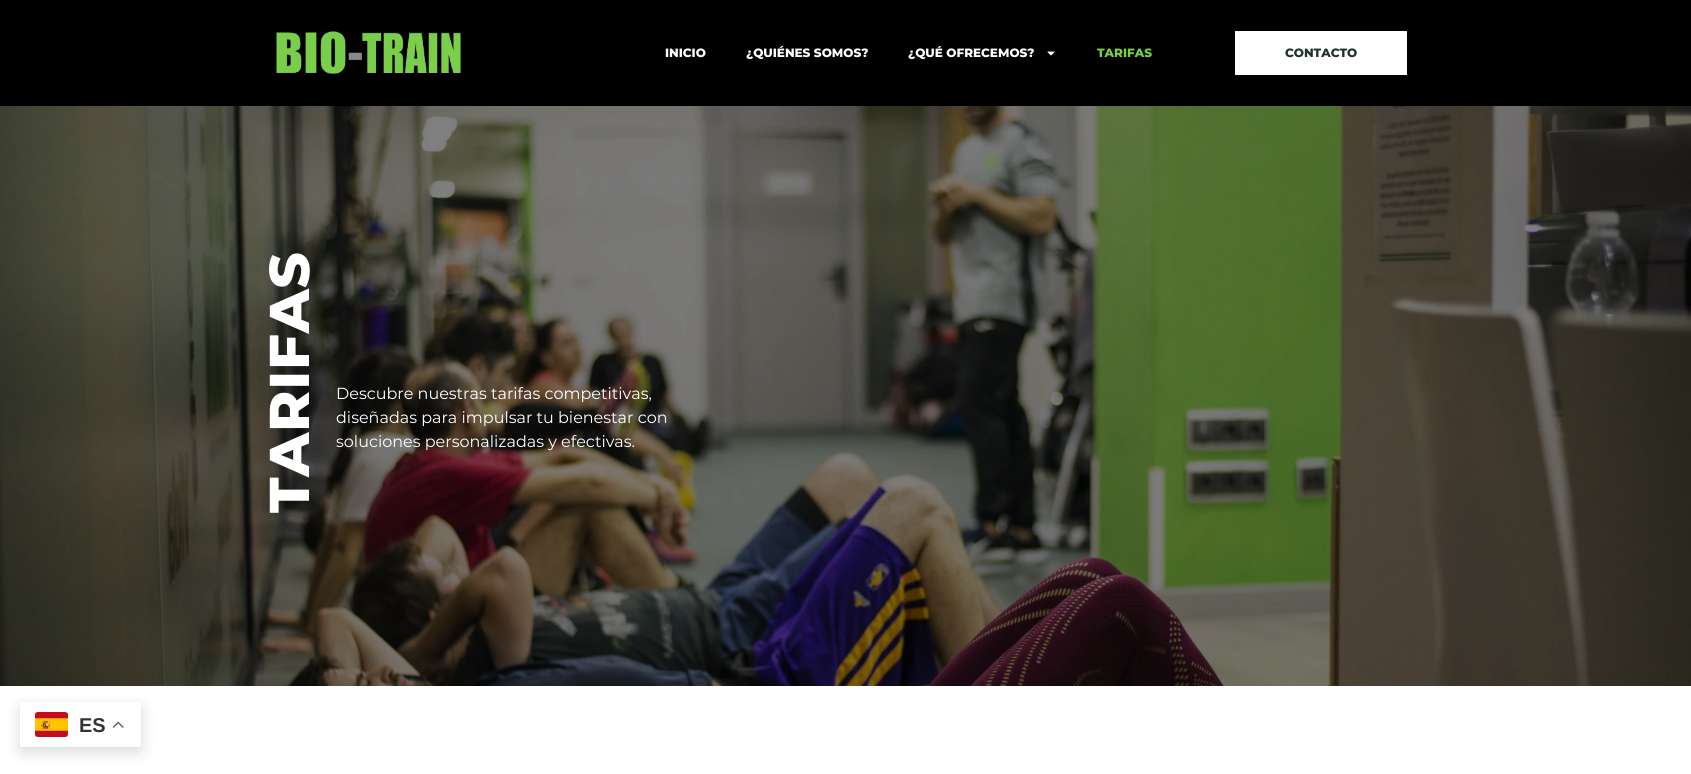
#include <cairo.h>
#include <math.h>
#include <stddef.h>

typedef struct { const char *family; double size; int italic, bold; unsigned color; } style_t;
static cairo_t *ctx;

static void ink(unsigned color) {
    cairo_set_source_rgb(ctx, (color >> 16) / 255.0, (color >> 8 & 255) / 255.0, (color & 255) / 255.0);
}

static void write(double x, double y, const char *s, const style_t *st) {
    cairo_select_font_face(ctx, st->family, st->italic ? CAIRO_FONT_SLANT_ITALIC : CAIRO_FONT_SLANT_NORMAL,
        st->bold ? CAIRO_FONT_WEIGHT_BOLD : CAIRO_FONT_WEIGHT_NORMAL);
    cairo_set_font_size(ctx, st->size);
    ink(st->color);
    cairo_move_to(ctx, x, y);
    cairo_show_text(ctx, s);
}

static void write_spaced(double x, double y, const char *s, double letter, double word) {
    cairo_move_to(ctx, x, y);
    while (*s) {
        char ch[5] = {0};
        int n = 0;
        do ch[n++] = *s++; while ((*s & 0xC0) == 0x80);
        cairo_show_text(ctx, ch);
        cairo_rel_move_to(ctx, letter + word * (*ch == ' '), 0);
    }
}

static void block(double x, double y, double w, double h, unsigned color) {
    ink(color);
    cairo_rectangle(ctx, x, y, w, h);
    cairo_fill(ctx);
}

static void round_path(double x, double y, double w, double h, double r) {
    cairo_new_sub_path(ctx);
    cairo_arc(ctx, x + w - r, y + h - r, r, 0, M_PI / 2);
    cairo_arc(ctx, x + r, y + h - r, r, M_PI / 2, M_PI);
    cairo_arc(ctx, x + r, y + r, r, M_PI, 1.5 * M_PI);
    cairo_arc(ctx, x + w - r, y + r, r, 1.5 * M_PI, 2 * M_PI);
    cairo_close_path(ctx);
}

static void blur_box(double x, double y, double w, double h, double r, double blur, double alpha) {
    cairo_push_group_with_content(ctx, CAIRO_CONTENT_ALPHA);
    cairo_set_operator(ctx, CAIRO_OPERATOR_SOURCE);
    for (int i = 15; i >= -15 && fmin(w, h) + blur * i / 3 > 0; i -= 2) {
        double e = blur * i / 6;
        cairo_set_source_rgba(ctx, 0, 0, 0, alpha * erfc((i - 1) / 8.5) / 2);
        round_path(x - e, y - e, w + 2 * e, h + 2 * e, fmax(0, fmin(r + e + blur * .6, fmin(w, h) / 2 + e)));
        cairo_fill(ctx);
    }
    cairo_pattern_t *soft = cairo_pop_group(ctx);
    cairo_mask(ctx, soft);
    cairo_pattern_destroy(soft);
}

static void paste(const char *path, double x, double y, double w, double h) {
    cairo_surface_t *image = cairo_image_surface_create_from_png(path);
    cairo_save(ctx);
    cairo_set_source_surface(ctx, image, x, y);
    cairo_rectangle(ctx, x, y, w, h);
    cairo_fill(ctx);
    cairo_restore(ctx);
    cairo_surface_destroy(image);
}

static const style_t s1 = {"Montserrat ExtraBold", 12, 0, 0, 0xffffff};
static const style_t s2 = {"Montserrat ExtraBold", 12, 0, 0, 0x7acf4a};
static const style_t s3 = {"Montserrat ExtraBold", 12, 0, 0, 0x20332b};
static const style_t s4 = {"Montserrat", 16, 0, 0, 0xffffff};
static const style_t s5 = {"Liberation Sans", 20, 0, 1, 0x333333};

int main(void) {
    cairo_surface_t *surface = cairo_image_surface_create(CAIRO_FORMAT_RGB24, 1691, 774);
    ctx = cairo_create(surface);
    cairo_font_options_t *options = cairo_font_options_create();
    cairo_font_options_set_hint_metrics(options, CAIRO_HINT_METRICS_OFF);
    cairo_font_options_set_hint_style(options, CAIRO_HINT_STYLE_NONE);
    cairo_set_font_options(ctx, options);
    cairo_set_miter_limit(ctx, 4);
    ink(0xffffff);
    cairo_paint(ctx);
    block(0, 0, 1691, 106, 0x000000);
    paste("pic1.png", 276, 31, 185, 43);
    write(665, 57, "INICIO", &s1);
    write(746, 57, "¿QUIÉNES SOMOS?", &s1);
    write(908, 57, "¿QUÉ OFRECEMOS?", &s1);
    paste("pic2.png", 1047, 51, 8, 5);
    write(1097, 57, "TARIFAS", &s2);
    block(1235, 31, 172, 44, 0xffffff);
    write(1285, 57, "CONTACTO", &s3);
    paste("pic3.png", 0, 106, 1691, 580);
    cairo_set_font_size(ctx, 56);
    ink(0xffffff);
    cairo_save(ctx);
    cairo_translate(ctx, 309, 513);
    cairo_rotate(ctx, -90 * M_PI / 180);
    write_spaced(0, 0, "TARIFAS", 0.75, 0);
    cairo_restore(ctx);
    write(336, 399, "Descubre nuestras tarifas competitivas,", &s4);
    write(336, 423, "diseñadas para impulsar tu bienestar con", &s4);
    write(336, 447, "soluciones personalizadas y efectivas.", &s4);
    ink(0x000000);
    blur_box(20, 707, 121, 45, 2, 7.5, 0.15);
    ink(0xffffff);
    round_path(20, 702, 121, 45, 2);
    cairo_fill(ctx);
    paste("pic4.png", 35, 712, 33, 25);
    write(79, 732, "ES", &s5);
    paste("pic5.png", 113, 721, 11, 7);
    cairo_surface_write_to_png(surface, "screenshot.png");
    cairo_font_options_destroy(options);
    cairo_destroy(ctx);
    cairo_surface_destroy(surface);
    return 0;
}
